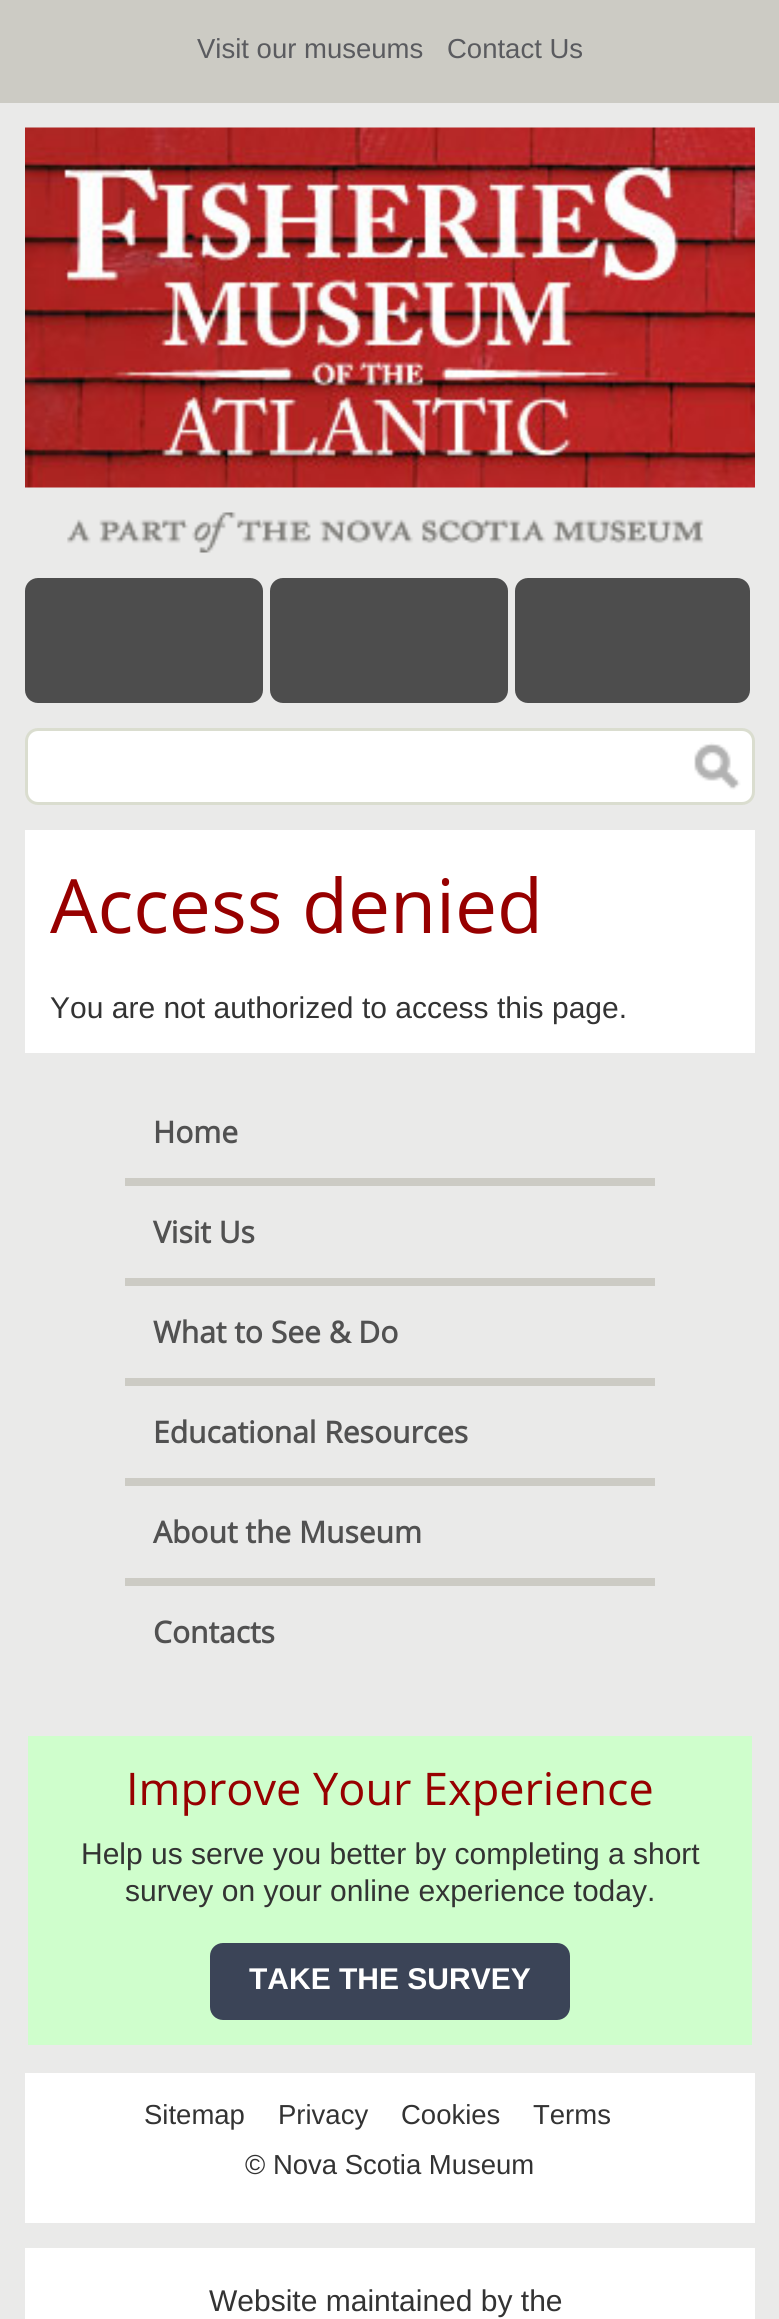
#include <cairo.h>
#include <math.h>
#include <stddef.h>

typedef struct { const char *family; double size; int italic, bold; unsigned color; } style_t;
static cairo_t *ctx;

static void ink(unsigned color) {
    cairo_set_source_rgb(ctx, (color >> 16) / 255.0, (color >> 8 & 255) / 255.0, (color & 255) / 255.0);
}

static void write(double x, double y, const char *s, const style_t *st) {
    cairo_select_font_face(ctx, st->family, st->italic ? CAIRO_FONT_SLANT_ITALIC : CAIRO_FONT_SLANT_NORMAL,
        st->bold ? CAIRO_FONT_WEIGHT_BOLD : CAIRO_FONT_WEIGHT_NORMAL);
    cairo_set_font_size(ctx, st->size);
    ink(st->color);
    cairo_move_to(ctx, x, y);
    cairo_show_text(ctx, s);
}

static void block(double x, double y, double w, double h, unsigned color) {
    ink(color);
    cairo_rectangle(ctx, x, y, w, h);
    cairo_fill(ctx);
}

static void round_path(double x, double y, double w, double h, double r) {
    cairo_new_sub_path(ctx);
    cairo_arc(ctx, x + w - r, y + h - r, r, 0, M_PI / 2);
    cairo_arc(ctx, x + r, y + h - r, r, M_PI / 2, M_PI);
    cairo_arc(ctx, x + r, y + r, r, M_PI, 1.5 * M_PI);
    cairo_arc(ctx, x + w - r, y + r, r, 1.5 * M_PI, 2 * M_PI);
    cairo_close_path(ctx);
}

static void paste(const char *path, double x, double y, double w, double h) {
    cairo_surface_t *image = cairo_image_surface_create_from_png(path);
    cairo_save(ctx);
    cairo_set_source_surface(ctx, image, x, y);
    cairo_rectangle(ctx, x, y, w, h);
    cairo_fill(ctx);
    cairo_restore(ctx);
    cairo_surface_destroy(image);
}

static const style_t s1 = {"Liberation Sans", 27.5, 0, 0, 0x5a5b5f};
static const style_t s2 = {"Open Sans", 75, 0, 0, 0x970000};
static const style_t s3 = {"Liberation Sans", 30, 0, 0, 0x333333};
static const style_t s4 = {"Open Sans", 30, 0, 1, 0x515151};
static const style_t s5 = {"Open Sans", 45, 0, 0, 0x970000};
static const style_t s6 = {"Liberation Sans", 30, 0, 1, 0xffffff};
static const style_t s7 = {"Liberation Sans", 27.5, 0, 0, 0x333333};

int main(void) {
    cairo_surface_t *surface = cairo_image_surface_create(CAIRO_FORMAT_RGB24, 779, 2319);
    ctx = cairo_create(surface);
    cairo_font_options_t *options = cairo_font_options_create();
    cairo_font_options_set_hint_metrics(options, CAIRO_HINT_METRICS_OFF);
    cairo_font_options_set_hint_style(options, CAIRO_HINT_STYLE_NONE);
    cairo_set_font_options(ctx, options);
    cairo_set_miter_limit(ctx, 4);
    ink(0xeaeae9);
    cairo_paint(ctx);
    block(0, 0, 779, 103, 0xcccbc4);
    write(197, 58, "Visit our museums", &s1);
    write(447, 58, "Contact Us", &s1);
    paste("pic1.png", 25, 127, 730, 361);
    paste("pic2.png", 67, 512, 637, 41);
    ink(0x4d4d4d);
    round_path(25, 578, 238, 125, 13);
    cairo_fill(ctx);
    round_path(270, 578, 238, 125, 13);
    cairo_fill(ctx);
    round_path(515, 578, 235, 125, 13);
    cairo_fill(ctx);
    ink(0xffffff);
    round_path(26.5, 729.5, 727, 74, 11.5);
    cairo_fill_preserve(ctx);
    ink(0xdaddcf);
    cairo_set_line_width(ctx, 3);
    cairo_stroke(ctx);
    paste("pic3.png", 694, 742, 47, 48);
    block(25, 830, 730, 223, 0xffffff);
    write(50, 933, "Access denied", &s2);
    write(50, 1018, "You are not authorized to access this page.", &s3);
    write(153, 1143, "Home", &s4);
    block(125, 1178, 530, 8, 0xcccbc4);
    write(153, 1243, "Visit Us", &s4);
    block(125, 1278, 530, 8, 0xcccbc4);
    write(153, 1343, "What to See & Do", &s4);
    block(125, 1378, 530, 8, 0xcccbc4);
    write(153, 1443, "Educational Resources", &s4);
    block(125, 1478, 530, 8, 0xcccbc4);
    write(153, 1543, "About the Museum", &s4);
    block(125, 1578, 530, 8, 0xcccbc4);
    write(153, 1643, "Contacts", &s4);
    block(28, 1736, 724, 309, 0xcffecc);
    write(126, 1805, "Improve Your Experience", &s5);
    write(81, 1864, "Help us serve you better by completing a short", &s3);
    write(125, 1901, "survey on your online experience today.", &s3);
    ink(0x3b4457);
    round_path(210, 1943, 360, 77, 13);
    cairo_fill(ctx);
    write(249, 1989, "TAKE THE SURVEY", &s6);
    block(25, 2073, 730, 150, 0xffffff);
    write(144, 2124, "Sitemap", &s7);
    write(278, 2124, "Privacy", &s7);
    write(401, 2124, "Cookies", &s7);
    write(533, 2124, "Terms", &s7);
    write(245, 2174, "© Nova Scotia Museum", &s7);
    block(25, 2248, 730, 71, 0xffffff);
    write(209, 2311, "Website maintained by the", &s3);
    cairo_surface_write_to_png(surface, "screenshot.png");
    cairo_font_options_destroy(options);
    cairo_destroy(ctx);
    cairo_surface_destroy(surface);
    return 0;
}
